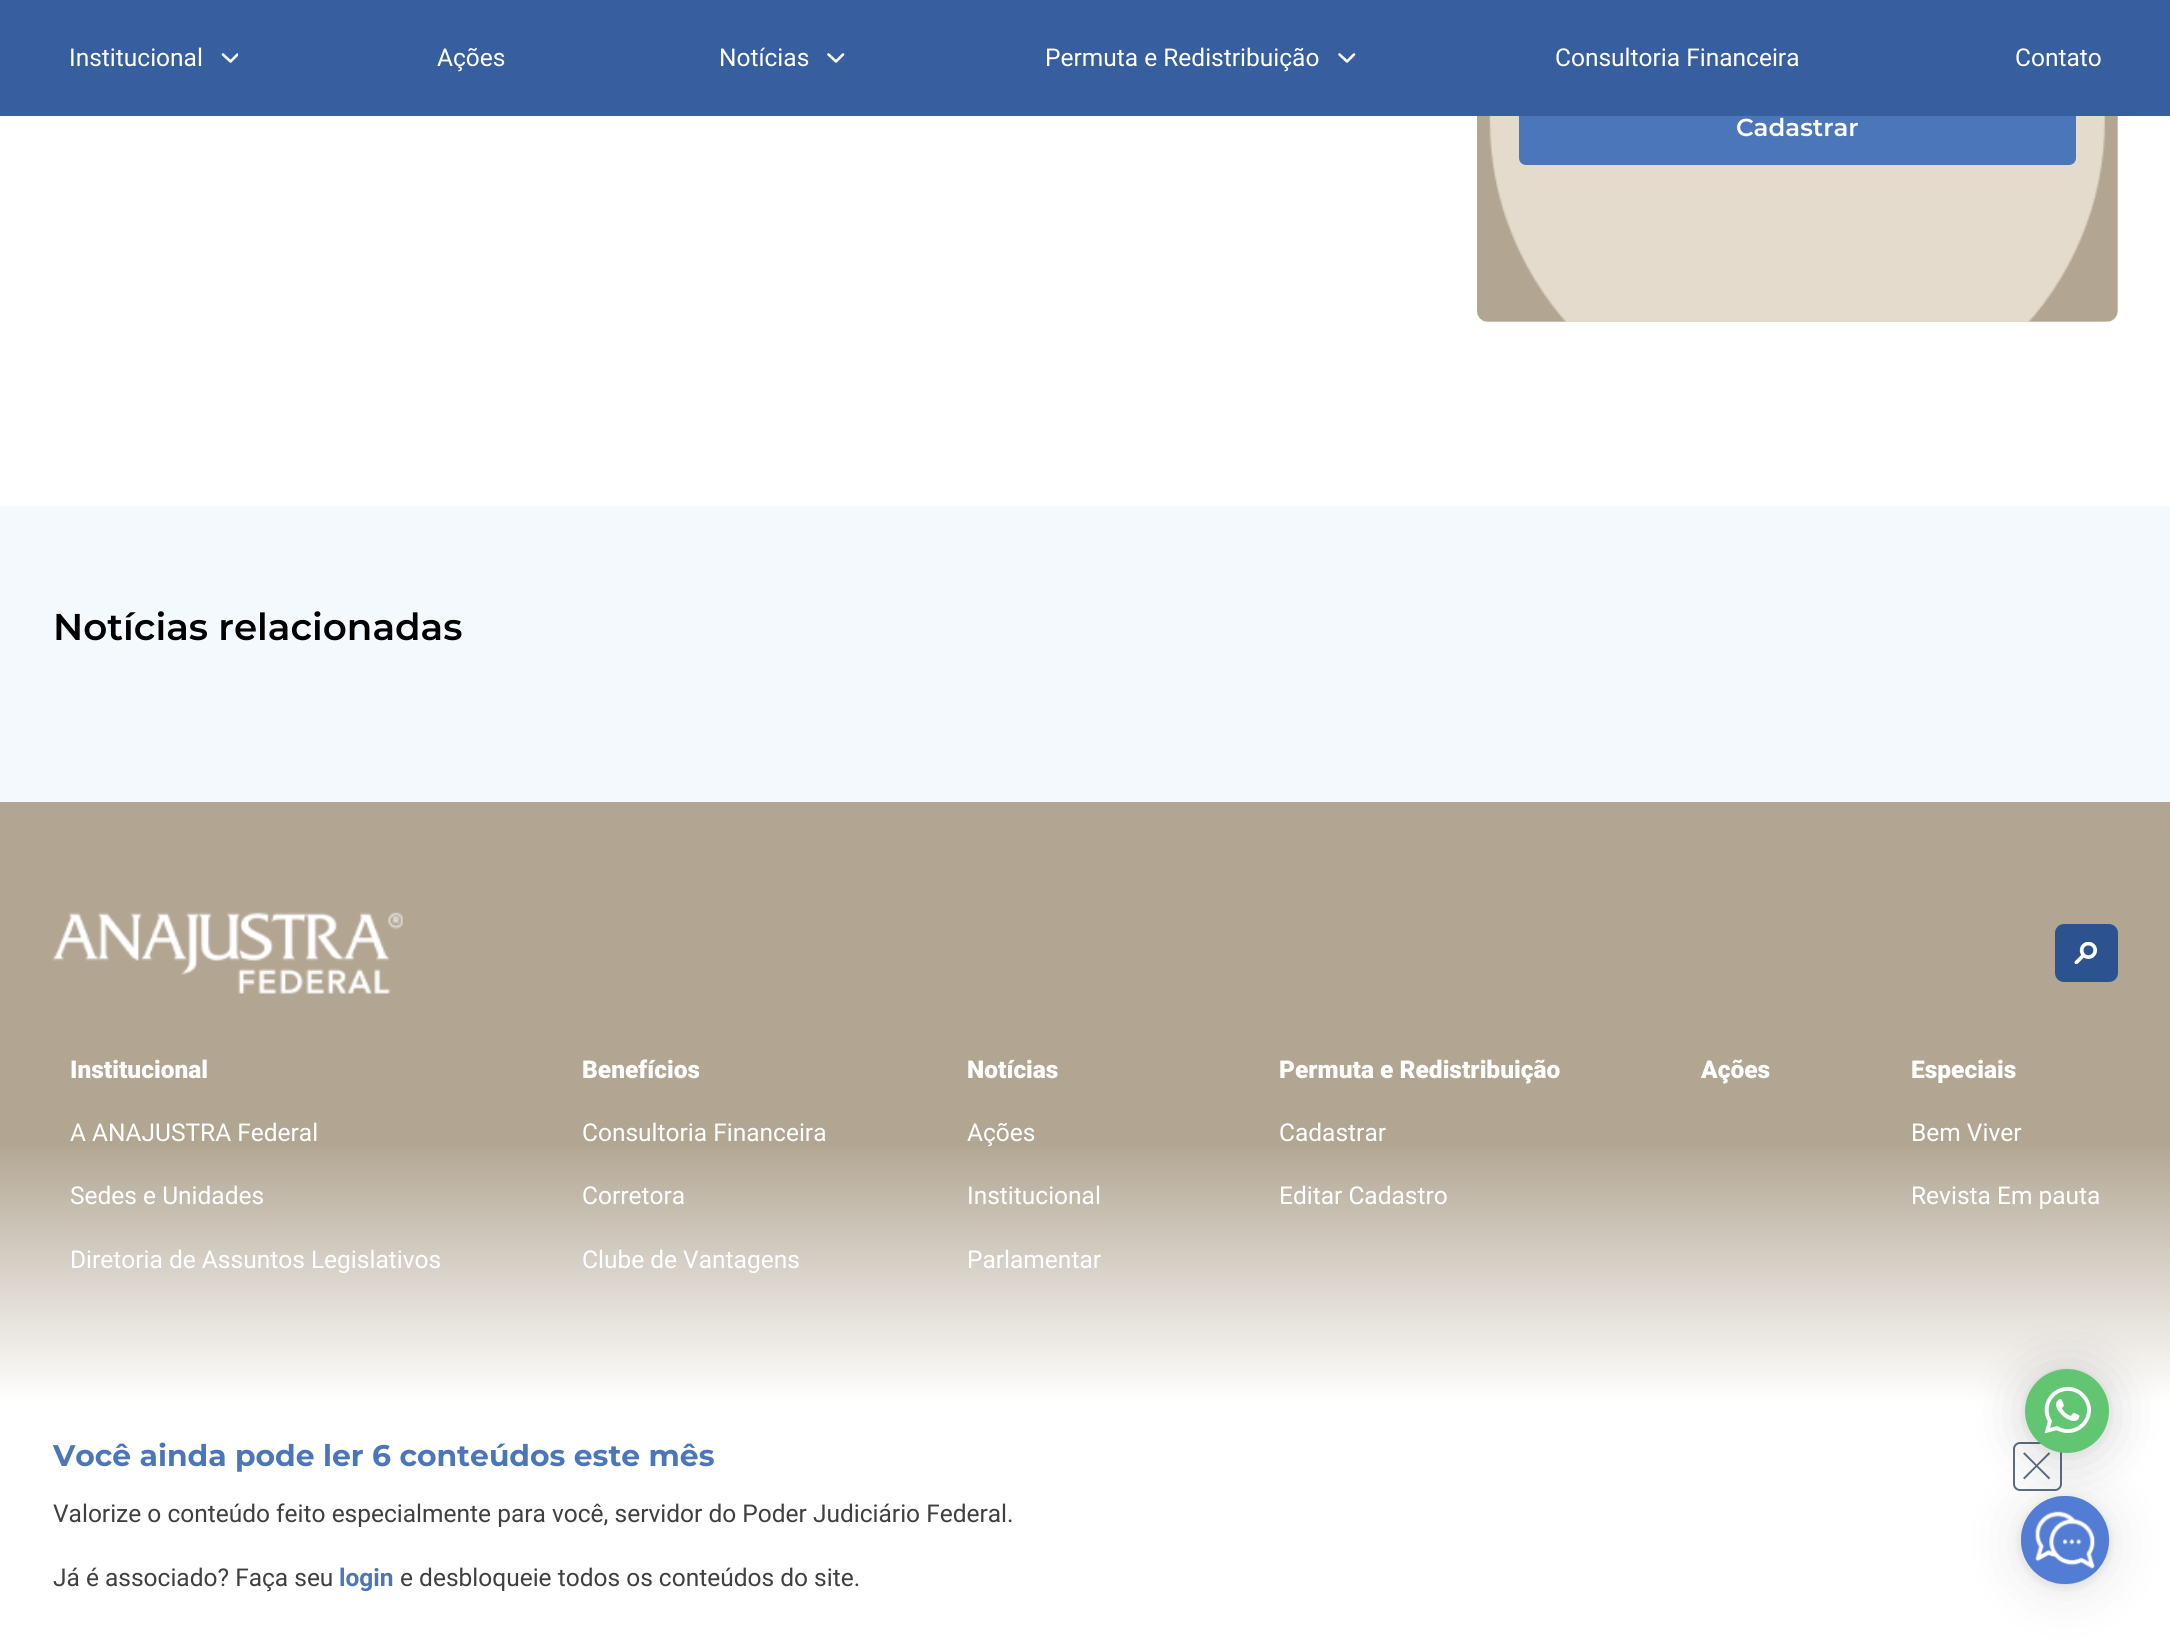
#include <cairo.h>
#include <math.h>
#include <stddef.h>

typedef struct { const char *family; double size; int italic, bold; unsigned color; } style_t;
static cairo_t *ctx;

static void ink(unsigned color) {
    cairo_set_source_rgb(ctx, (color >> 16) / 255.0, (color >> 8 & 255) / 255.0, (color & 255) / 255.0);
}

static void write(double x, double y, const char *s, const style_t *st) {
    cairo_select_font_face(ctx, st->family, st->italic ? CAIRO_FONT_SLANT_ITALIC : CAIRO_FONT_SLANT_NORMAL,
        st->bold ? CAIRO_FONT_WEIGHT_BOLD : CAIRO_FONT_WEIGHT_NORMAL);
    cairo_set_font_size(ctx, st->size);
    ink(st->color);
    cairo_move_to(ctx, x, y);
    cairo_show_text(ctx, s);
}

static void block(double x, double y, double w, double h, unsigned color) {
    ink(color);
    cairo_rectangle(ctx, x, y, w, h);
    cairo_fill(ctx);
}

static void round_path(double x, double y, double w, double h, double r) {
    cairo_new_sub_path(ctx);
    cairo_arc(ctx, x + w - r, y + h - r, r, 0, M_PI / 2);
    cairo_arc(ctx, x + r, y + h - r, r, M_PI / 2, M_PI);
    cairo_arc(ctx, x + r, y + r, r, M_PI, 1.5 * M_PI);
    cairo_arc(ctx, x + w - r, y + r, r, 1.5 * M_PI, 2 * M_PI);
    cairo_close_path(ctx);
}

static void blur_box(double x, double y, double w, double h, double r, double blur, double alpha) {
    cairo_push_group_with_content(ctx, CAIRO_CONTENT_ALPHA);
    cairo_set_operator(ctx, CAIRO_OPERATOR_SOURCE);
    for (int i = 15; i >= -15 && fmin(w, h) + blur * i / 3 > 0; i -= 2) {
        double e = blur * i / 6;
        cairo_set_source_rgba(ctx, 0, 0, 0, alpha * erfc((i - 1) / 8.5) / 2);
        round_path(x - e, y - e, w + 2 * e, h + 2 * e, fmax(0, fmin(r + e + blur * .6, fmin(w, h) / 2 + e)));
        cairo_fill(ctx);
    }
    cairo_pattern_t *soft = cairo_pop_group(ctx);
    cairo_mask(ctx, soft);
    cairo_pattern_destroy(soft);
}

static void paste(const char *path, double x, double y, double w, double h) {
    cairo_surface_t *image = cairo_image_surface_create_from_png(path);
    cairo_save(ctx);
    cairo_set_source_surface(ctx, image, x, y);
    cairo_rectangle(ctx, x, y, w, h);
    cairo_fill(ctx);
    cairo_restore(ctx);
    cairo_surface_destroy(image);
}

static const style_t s1 = {"Roboto", 24.5, 0, 0, 0xffffff};
static const style_t s2 = {"Montserrat SemiBold", 24.5, 0, 0, 0xffffff};
static const style_t s3 = {"Montserrat Thin", 29.8, 0, 0, 0x4c76ba};
static const style_t s4 = {"Roboto", 24.5, 0, 0, 0x404040};
static const style_t s5 = {"Roboto", 24.5, 0, 1, 0x4c76ba};
static const style_t s6 = {"Montserrat SemiBold", 37.25, 0, 0, 0x000000};
static const style_t s7 = {"Roboto Black", 24.5, 0, 0, 0xffffff};

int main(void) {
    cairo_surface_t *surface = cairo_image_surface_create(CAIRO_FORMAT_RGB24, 2170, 1644);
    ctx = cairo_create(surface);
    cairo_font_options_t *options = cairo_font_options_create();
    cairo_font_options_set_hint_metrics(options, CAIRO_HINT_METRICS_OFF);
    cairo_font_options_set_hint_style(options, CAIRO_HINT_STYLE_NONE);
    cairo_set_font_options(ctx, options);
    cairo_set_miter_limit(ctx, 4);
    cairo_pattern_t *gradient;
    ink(0xffffff);
    cairo_paint(ctx);
    ink(0xe4dbcd);
    round_path(1477, -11, 641, 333, 11);
    cairo_fill(ctx);
    paste("pic2.png", 1477, 116, 641, 206);
    ink(0x4c76ba);
    round_path(1519, 93, 557, 72, 7);
    cairo_fill(ctx);
    block(0, 0, 2170, 116, 0x375e9e);
    write(69, 66, "Institucional", &s1);
    cairo_save(ctx);
    cairo_rectangle(ctx, 221, 53, 17, 10);
    cairo_clip(ctx);
    cairo_new_path(ctx);
    cairo_move_to(ctx, 223, 54.5);
    cairo_line_to(ctx, 230.5, 61.5);
    cairo_line_to(ctx, 237.5, 54.5);
    cairo_set_line_width(ctx, 2.6);
    cairo_set_line_cap(ctx, CAIRO_LINE_CAP_ROUND);
    cairo_set_line_join(ctx, CAIRO_LINE_JOIN_ROUND);
    cairo_stroke(ctx);
    cairo_restore(ctx);
    write(437, 66, "Ações", &s1);
    write(719, 66, "Notícias", &s1);
    cairo_new_path(ctx);
    cairo_move_to(ctx, 828.5, 54.5);
    cairo_line_to(ctx, 836, 61.5);
    cairo_line_to(ctx, 843, 54.5);
    cairo_set_line_width(ctx, 2.6);
    cairo_set_line_cap(ctx, CAIRO_LINE_CAP_ROUND);
    cairo_set_line_join(ctx, CAIRO_LINE_JOIN_ROUND);
    cairo_stroke(ctx);
    write(1045, 66, "Permuta e Redistribuição", &s1);
    cairo_new_path(ctx);
    cairo_move_to(ctx, 1339.5, 54.5);
    cairo_line_to(ctx, 1347, 61.5);
    cairo_line_to(ctx, 1354, 54.5);
    cairo_stroke(ctx);
    write(1555, 66, "Consultoria Financeira", &s1);
    write(2015, 66, "Contato", &s1);
    block(0, 802, 2170, 600, 0xb2a693);
    write(70, 1204, "Sedes e Unidades", &s1);
    write(70, 1268, "Diretoria de Assuntos Legislativos", &s1);
    write(582, 1204, "Corretora", &s1);
    write(582, 1268, "Clube de Vantagens", &s1);
    write(967, 1204, "Institucional", &s1);
    write(967, 1268, "Parlamentar", &s1);
    write(1279, 1204, "Editar Cadastro", &s1);
    write(1911, 1204, "Revista Em pauta", &s1);
    gradient = cairo_pattern_create_linear(1085, 1141, 1085, 1404);
    cairo_pattern_add_color_stop_rgba(gradient, 0, 1, 1, 1, 0);
    cairo_pattern_add_color_stop_rgba(gradient, 1, 1, 1, 1, 1);
    cairo_set_source(ctx, gradient);
    cairo_pattern_destroy(gradient);
    cairo_rectangle(ctx, 0, 1148, 2170, 254);
    cairo_fill(ctx);
    round_path(2014, 1443, 47, 47, 6);
    ink(0x5c6f82);
    cairo_set_line_width(ctx, 2);
    cairo_set_line_cap(ctx, CAIRO_LINE_CAP_BUTT);
    cairo_set_line_join(ctx, CAIRO_LINE_JOIN_MITER);
    cairo_stroke(ctx);
    paste("pic3.png", 2023, 1452, 28, 28);
    ink(0x000000);
    blur_box(2025, 1372, 84, 84, 42, 28, 0.16);
    blur_box(2025, 1370, 84, 84, 42, 5, 0.06);
    ink(0x62c572);
    cairo_arc(ctx, 2067, 1411, 42, 0, 2 * M_PI);
    cairo_fill(ctx);
    paste("pic1.png", 2044, 1386, 47, 48);
    write(1736, 136, "Cadastrar", &s2);
    write(53, 1466, "Você ainda pode ler 6 conteúdos este mês", &s3);
    write(53, 1522, "Valorize o conteúdo feito especialmente para você, servidor do Poder Judiciário Federal.", &s4);
    write(53, 1586, "Já é associado? Faça seu", &s4);
    write(339, 1586, "login", &s5);
    write(400, 1586, "e desbloqueie todos os conteúdos do site.", &s4);
    block(0, 506, 2170, 296, 0xf4f9fe);
    write(53, 640, "Notícias relacionadas", &s6);
    paste("pic4.png", 52, 912, 351, 82);
    ink(0x2c528f);
    round_path(2055, 924, 63, 58, 9);
    cairo_fill(ctx);
    paste("pic5.png", 2074, 942, 23, 22);
    write(70, 1078, "Institucional", &s7);
    write(70, 1141, "A ANAJUSTRA Federal", &s1);
    write(582, 1078, "Benefícios", &s7);
    write(582, 1141, "Consultoria Financeira", &s1);
    write(967, 1078, "Notícias", &s7);
    write(967, 1141, "Ações", &s1);
    write(1279, 1078, "Permuta e Redistribuição", &s7);
    write(1279, 1141, "Cadastrar", &s1);
    write(1701, 1078, "Ações", &s7);
    write(1911, 1078, "Especiais", &s7);
    write(1911, 1141, "Bem Viver", &s1);
    ink(0x000000);
    blur_box(2021, 1500, 88, 87, 43.5, 28, 0.1);
    blur_box(2021, 1498, 88, 88, 44, 5, 0.1);
    ink(0x537cd4);
    cairo_arc(ctx, 2065, 1540, 44, 0, 2 * M_PI);
    cairo_fill(ctx);
    paste("pic6.png", 2021, 1496, 89, 89);
    cairo_surface_write_to_png(surface, "screenshot.png");
    cairo_font_options_destroy(options);
    cairo_destroy(ctx);
    cairo_surface_destroy(surface);
    return 0;
}
